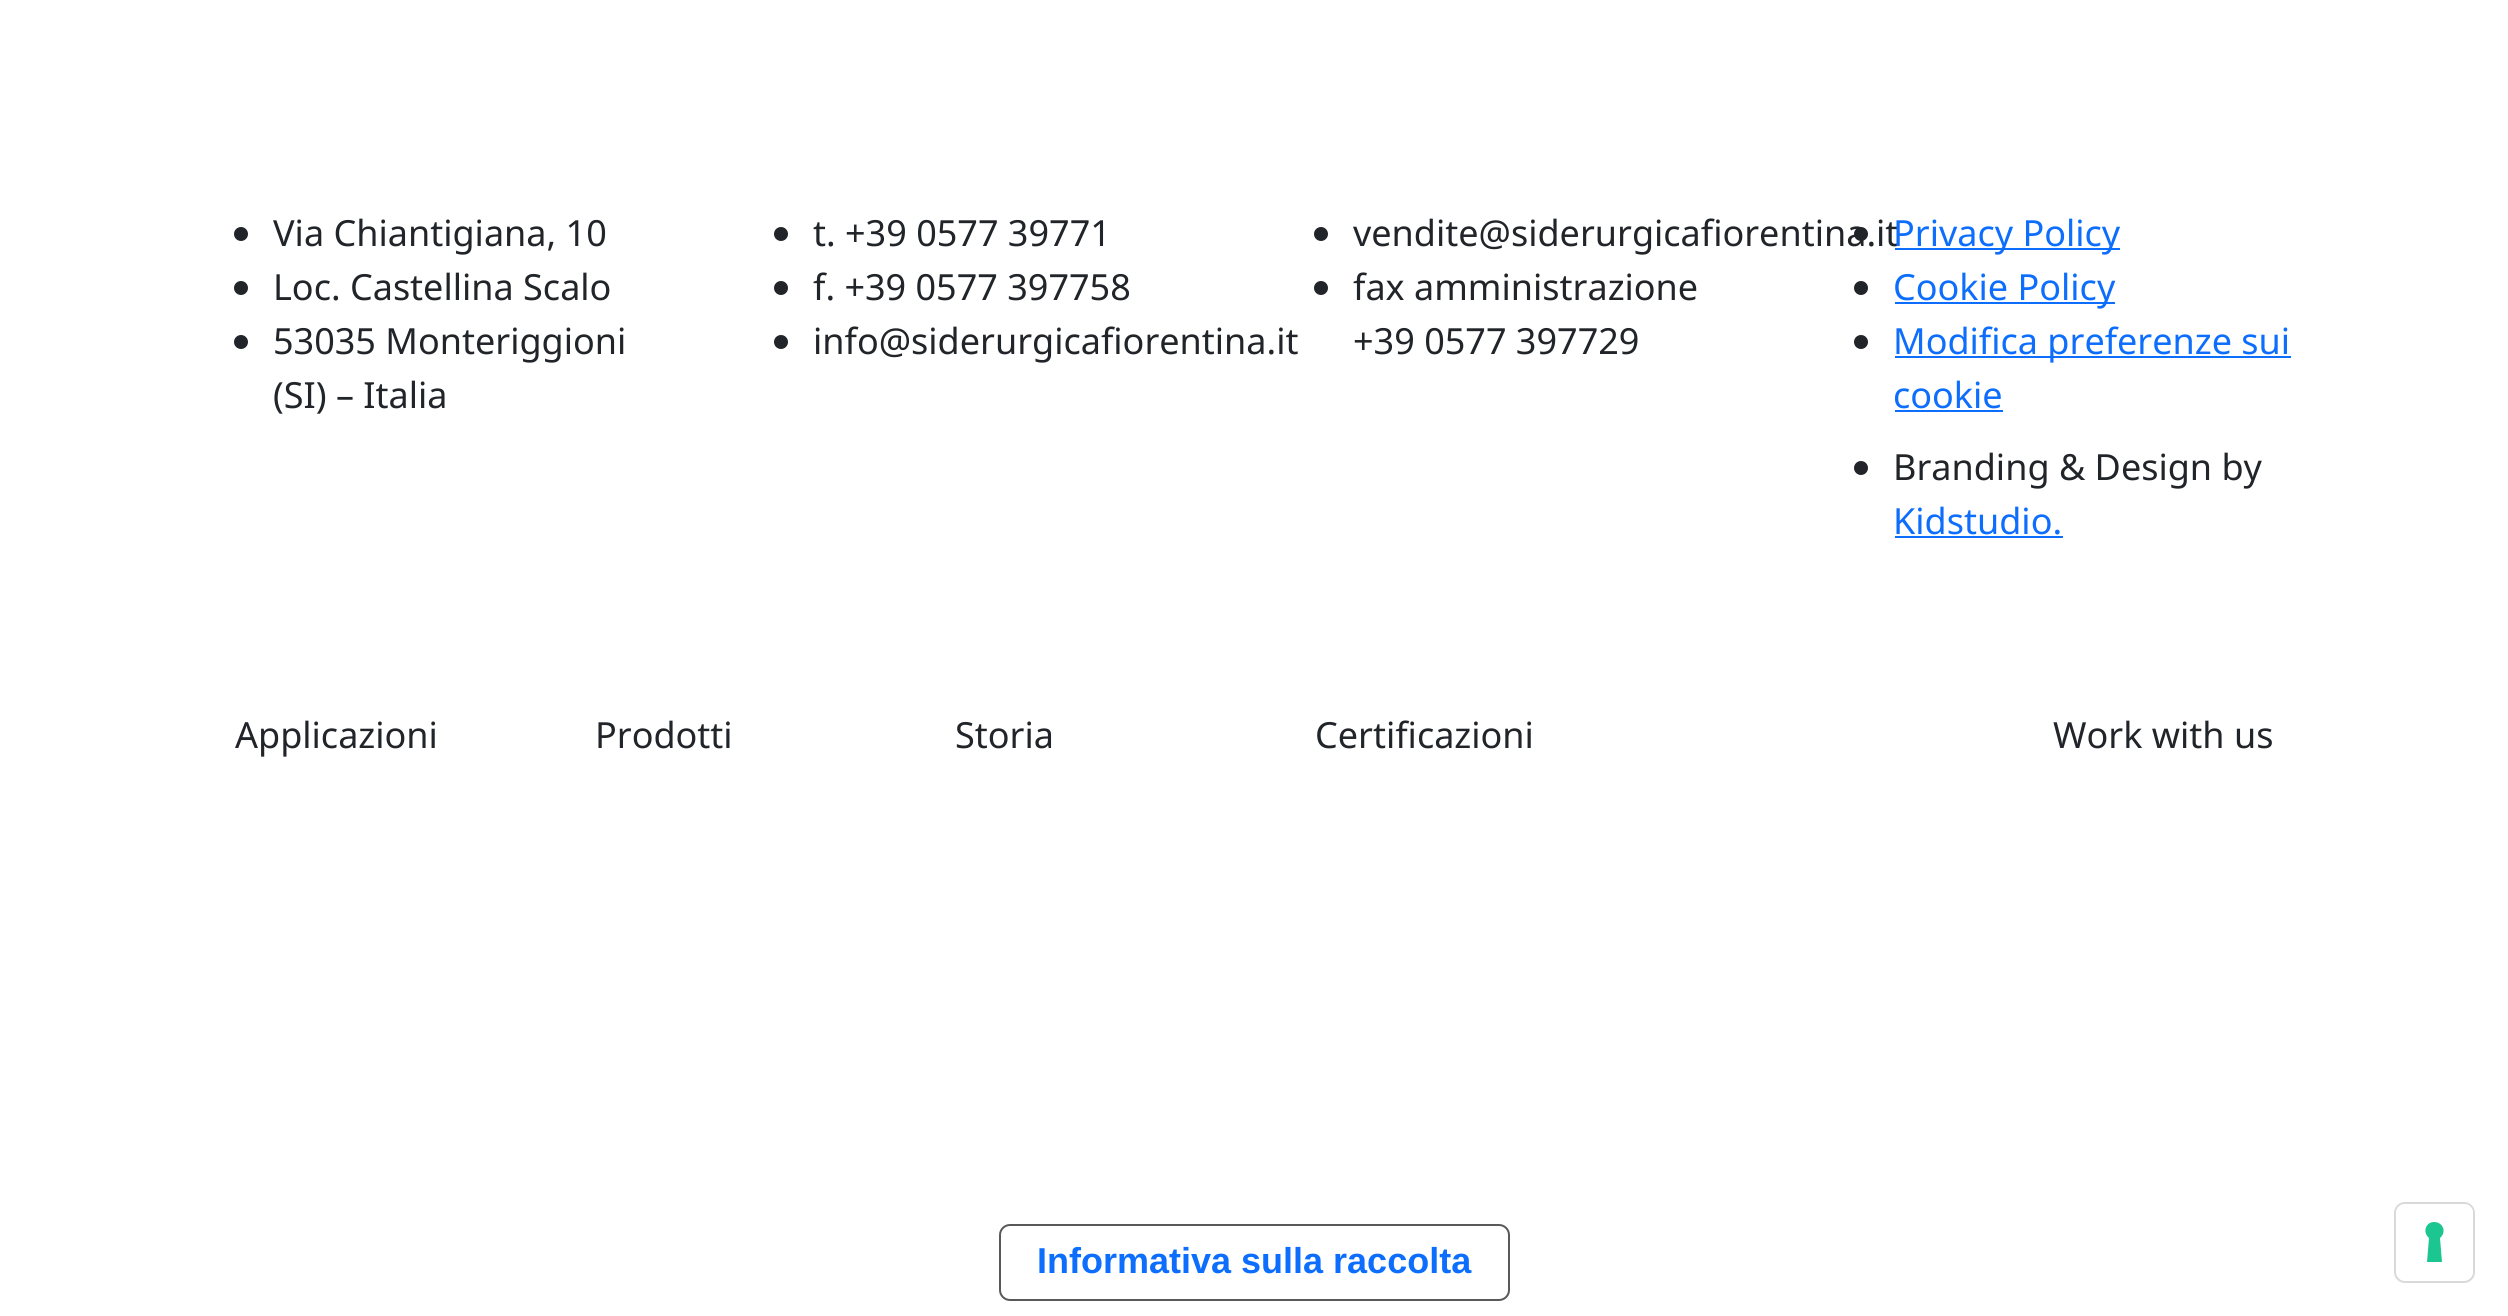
#include <cairo.h>
#include <math.h>
#include <stddef.h>

typedef struct { const char *family; double size; int italic, bold; unsigned color; } style_t;
static cairo_t *ctx;

static void ink(unsigned color) {
    cairo_set_source_rgb(ctx, (color >> 16) / 255.0, (color >> 8 & 255) / 255.0, (color & 255) / 255.0);
}

static void write(double x, double y, const char *s, const style_t *st) {
    cairo_select_font_face(ctx, st->family, st->italic ? CAIRO_FONT_SLANT_ITALIC : CAIRO_FONT_SLANT_NORMAL,
        st->bold ? CAIRO_FONT_WEIGHT_BOLD : CAIRO_FONT_WEIGHT_NORMAL);
    cairo_set_font_size(ctx, st->size);
    ink(st->color);
    cairo_move_to(ctx, x, y);
    cairo_show_text(ctx, s);
}

static void block(double x, double y, double w, double h, unsigned color) {
    ink(color);
    cairo_rectangle(ctx, x, y, w, h);
    cairo_fill(ctx);
}

static void round_path(double x, double y, double w, double h, double r) {
    cairo_new_sub_path(ctx);
    cairo_arc(ctx, x + w - r, y + h - r, r, 0, M_PI / 2);
    cairo_arc(ctx, x + r, y + h - r, r, M_PI / 2, M_PI);
    cairo_arc(ctx, x + r, y + r, r, M_PI, 1.5 * M_PI);
    cairo_arc(ctx, x + w - r, y + r, r, 1.5 * M_PI, 2 * M_PI);
    cairo_close_path(ctx);
}

static const style_t s1 = {"Noto Sans", 36, 0, 0, 0x212529};
static const style_t s2 = {"Noto Sans", 36, 0, 0, 0x0d6efd};
static const style_t s3 = {"Liberation Sans", 36, 0, 1, 0x0d6efd};

int main(void) {
    cairo_surface_t *surface = cairo_image_surface_create(CAIRO_FORMAT_RGB24, 2508, 1316);
    ctx = cairo_create(surface);
    cairo_font_options_t *options = cairo_font_options_create();
    cairo_font_options_set_hint_metrics(options, CAIRO_HINT_METRICS_OFF);
    cairo_font_options_set_hint_style(options, CAIRO_HINT_STYLE_NONE);
    cairo_set_font_options(ctx, options);
    cairo_set_miter_limit(ctx, 4);
    ink(0xffffff);
    cairo_paint(ctx);
    ink(0x212529);
    cairo_arc(ctx, 241, 234, 7, 0, 2 * M_PI);
    cairo_fill(ctx);
    write(273, 246, "Via Chiantigiana, 10", &s1);
    cairo_new_path(ctx);
    cairo_arc(ctx, 241, 288, 7, 0, 2 * M_PI);
    cairo_fill(ctx);
    write(273, 300, "Loc. Castellina Scalo", &s1);
    cairo_new_path(ctx);
    cairo_arc(ctx, 241, 342, 7, 0, 2 * M_PI);
    cairo_fill(ctx);
    write(273, 354, "53035 Monteriggioni", &s1);
    write(273, 408, "(SI) – Italia", &s1);
    cairo_new_path(ctx);
    cairo_arc(ctx, 781, 234, 7, 0, 2 * M_PI);
    cairo_fill(ctx);
    write(813, 246, "t. +39 0577 39771", &s1);
    cairo_new_path(ctx);
    cairo_arc(ctx, 781, 288, 7, 0, 2 * M_PI);
    cairo_fill(ctx);
    write(813, 300, "f. +39 0577 397758", &s1);
    cairo_new_path(ctx);
    cairo_arc(ctx, 781, 342, 7, 0, 2 * M_PI);
    cairo_fill(ctx);
    write(813, 354, "info@siderurgicafiorentina.it", &s1);
    cairo_new_path(ctx);
    cairo_arc(ctx, 1321, 234, 7, 0, 2 * M_PI);
    cairo_fill(ctx);
    write(1353, 246, "vendite@siderurgicafiorentina.it", &s1);
    cairo_new_path(ctx);
    cairo_arc(ctx, 1321, 288, 7, 0, 2 * M_PI);
    cairo_fill(ctx);
    write(1353, 300, "fax amministrazione", &s1);
    write(1353, 354, "+39 0577 397729", &s1);
    cairo_new_path(ctx);
    cairo_arc(ctx, 1861, 234, 7, 0, 2 * M_PI);
    cairo_fill(ctx);
    block(1895, 248, 225, 2, 0x0d6efd);
    write(1893, 246, "Privacy Policy", &s2);
    ink(0x212529);
    cairo_new_path(ctx);
    cairo_arc(ctx, 1861, 288, 7, 0, 2 * M_PI);
    cairo_fill(ctx);
    block(1895, 302, 220, 2, 0x0d6efd);
    write(1893, 300, "Cookie Policy", &s2);
    ink(0x212529);
    cairo_new_path(ctx);
    cairo_arc(ctx, 1861, 342, 7, 0, 2 * M_PI);
    cairo_fill(ctx);
    block(1895, 356, 396, 2, 0x0d6efd);
    write(1893, 354, "Modifica preferenze sui", &s2);
    write(1893, 408, "cookie", &s2);
    block(1895, 410, 108, 2, 0x0d6efd);
    ink(0x212529);
    cairo_new_path(ctx);
    cairo_arc(ctx, 1861, 468, 7, 0, 2 * M_PI);
    cairo_fill(ctx);
    write(1893, 480, "Branding & Design by", &s1);
    write(1893, 534, "Kidstudio.", &s2);
    block(1895, 536, 168, 2, 0x0d6efd);
    write(235, 748, "Applicazioni", &s1);
    write(595, 748, "Prodotti", &s1);
    write(955, 748, "Storia", &s1);
    write(1315, 748, "Certificazioni", &s1);
    write(2053, 748, "Work with us", &s1);
    round_path(1000, 1225, 509, 75, 10);
    ink(0x595959);
    cairo_stroke(ctx);
    write(1037, 1273, "Informativa sulla raccolta", &s3);
    round_path(2395, 1203, 79, 79, 10);
    ink(0xd9d9d9);
    cairo_stroke(ctx);
    ink(0xffffff);
    round_path(2396, 1204, 77, 76, 9);
    cairo_fill(ctx);
    ink(0x1cc691);
    cairo_set_fill_rule(ctx, CAIRO_FILL_RULE_EVEN_ODD);
    cairo_new_path(ctx);
    cairo_move_to(ctx, 2434, 1222);
    cairo_curve_to(ctx, 2443, 1222, 2447, 1232, 2440, 1238);
    cairo_line_to(ctx, 2442, 1262);
    cairo_line_to(ctx, 2427, 1262);
    cairo_line_to(ctx, 2429, 1238);
    cairo_curve_to(ctx, 2422, 1232, 2426, 1222, 2434, 1222);
    cairo_close_path(ctx);
    cairo_fill(ctx);
    cairo_surface_write_to_png(surface, "screenshot.png");
    cairo_font_options_destroy(options);
    cairo_destroy(ctx);
    cairo_surface_destroy(surface);
    return 0;
}
